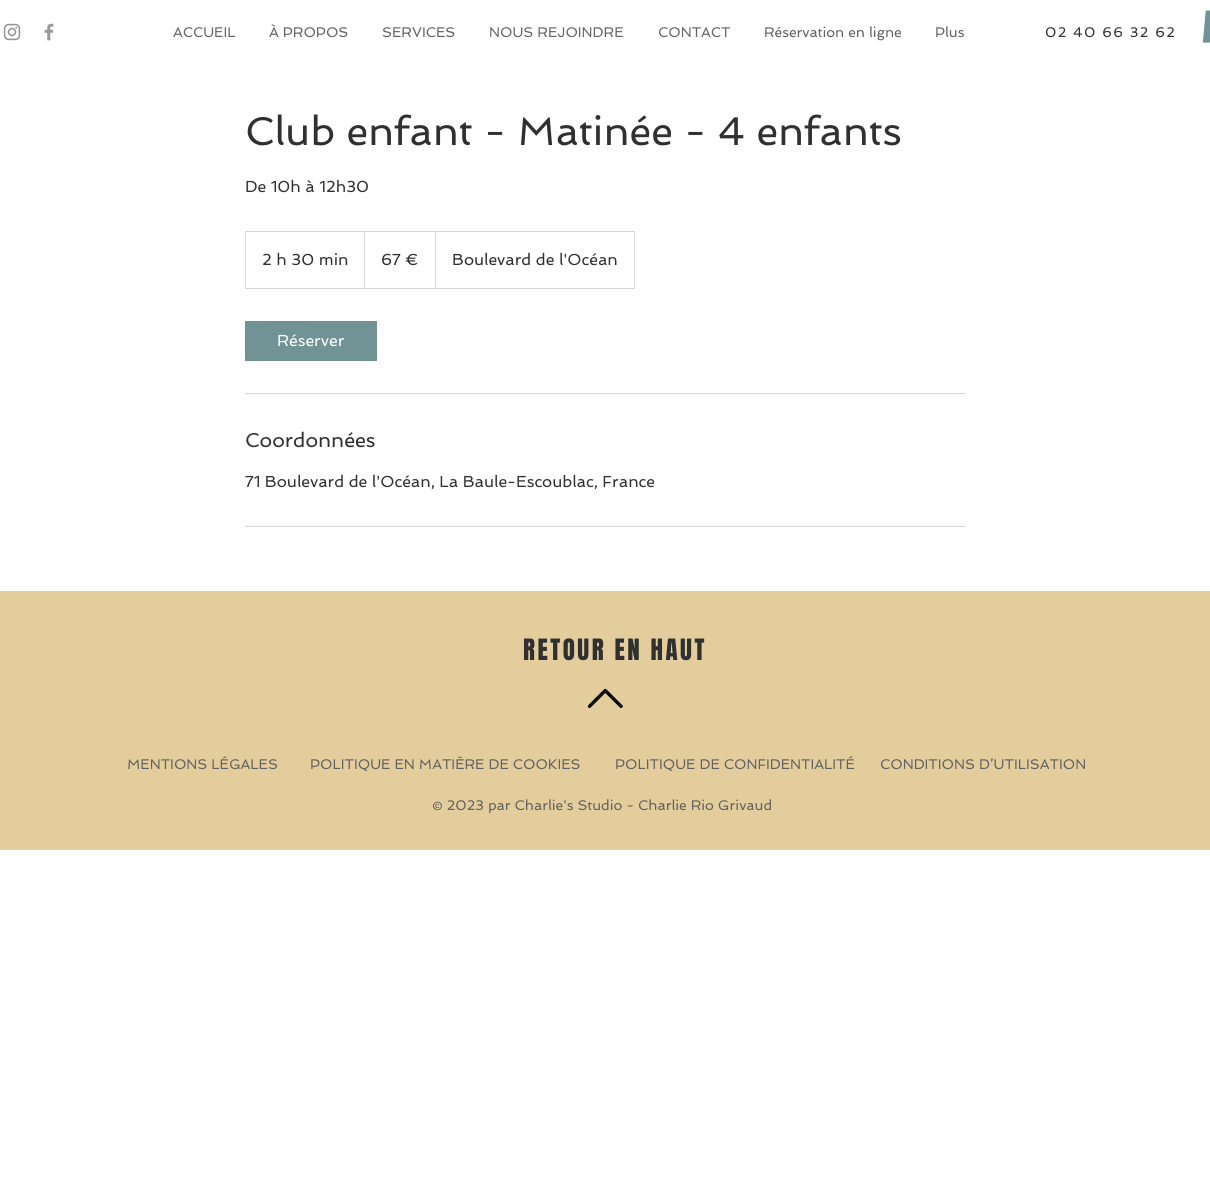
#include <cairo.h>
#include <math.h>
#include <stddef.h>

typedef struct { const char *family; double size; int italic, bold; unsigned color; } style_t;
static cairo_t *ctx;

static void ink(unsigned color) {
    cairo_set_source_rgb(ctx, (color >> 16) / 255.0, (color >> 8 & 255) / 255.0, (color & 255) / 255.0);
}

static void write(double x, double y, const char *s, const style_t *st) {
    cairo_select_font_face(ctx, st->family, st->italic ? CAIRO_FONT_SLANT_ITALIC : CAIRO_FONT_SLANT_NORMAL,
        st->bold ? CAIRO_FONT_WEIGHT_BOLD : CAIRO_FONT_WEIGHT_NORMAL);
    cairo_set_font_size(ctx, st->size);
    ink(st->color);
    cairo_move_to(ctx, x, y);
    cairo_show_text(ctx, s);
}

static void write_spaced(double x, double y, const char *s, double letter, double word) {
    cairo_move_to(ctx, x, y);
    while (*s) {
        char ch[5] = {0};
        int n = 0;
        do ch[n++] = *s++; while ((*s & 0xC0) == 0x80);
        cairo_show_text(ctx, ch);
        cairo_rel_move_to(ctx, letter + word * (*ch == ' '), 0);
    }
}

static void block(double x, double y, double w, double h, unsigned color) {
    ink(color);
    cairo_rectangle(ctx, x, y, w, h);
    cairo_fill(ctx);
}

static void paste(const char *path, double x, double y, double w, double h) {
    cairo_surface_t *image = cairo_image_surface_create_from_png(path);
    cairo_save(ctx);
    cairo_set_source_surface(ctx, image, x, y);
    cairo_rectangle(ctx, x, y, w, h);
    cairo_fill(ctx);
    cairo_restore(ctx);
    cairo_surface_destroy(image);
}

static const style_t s1 = {"Spinnaker", 14, 0, 0, 0x616161};
static const style_t s2 = {"Spinnaker", 40, 0, 0, 0x303030};
static const style_t s3 = {"Spinnaker", 16, 0, 0, 0x303030};
static const style_t s4 = {"Spinnaker", 16, 0, 0, 0xffffff};
static const style_t s5 = {"Spinnaker", 20, 0, 0, 0x303030};

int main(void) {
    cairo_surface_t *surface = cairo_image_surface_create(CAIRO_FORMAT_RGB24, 1210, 1202);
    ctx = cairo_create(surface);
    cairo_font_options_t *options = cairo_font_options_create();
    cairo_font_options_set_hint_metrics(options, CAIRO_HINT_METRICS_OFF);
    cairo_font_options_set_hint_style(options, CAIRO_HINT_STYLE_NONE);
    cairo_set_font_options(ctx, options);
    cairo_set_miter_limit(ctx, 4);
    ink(0xffffff);
    cairo_paint(ctx);
    paste("pic1.png", 3, 23, 18, 18);
    paste("pic2.png", 44, 23, 10, 18);
    write(173, 37, "ACCUEIL", &s1);
    write(269, 37, "À PROPOS", &s1);
    write(382, 37, "SERVICES", &s1);
    write(489, 37, "NOUS REJOINDRE", &s1);
    write(658, 37, "CONTACT", &s1);
    write(764, 37, "Réservation en ligne", &s1);
    write(935, 37, "Plus", &s1);
    ink(0x303030);
    write_spaced(1045, 37, "02 40 66 32 62", 1.4, 0);
    paste("pic3.png", 1202, 10, 8, 33);
    write(245, 145, "Club enfant - Matinée - 4 enfants", &s2);
    write(245, 192, "De 10h à 12h30", &s3);
    cairo_rectangle(ctx, 245.5, 231.5, 389, 57);
    ink(0xd6d6d6);
    cairo_set_line_width(ctx, 1);
    cairo_stroke(ctx);
    write(262, 265, "2 h 30 min", &s3);
    ink(0xd6d6d6);
    cairo_new_path(ctx);
    cairo_move_to(ctx, 364, 288);
    cairo_line_to(ctx, 364, 231);
    cairo_line_to(ctx, 365, 232);
    cairo_line_to(ctx, 365, 288);
    cairo_close_path(ctx);
    cairo_fill(ctx);
    write(381, 265, "67 €", &s3);
    ink(0xd6d6d6);
    cairo_new_path(ctx);
    cairo_move_to(ctx, 435, 288);
    cairo_line_to(ctx, 435, 231);
    cairo_line_to(ctx, 436, 232);
    cairo_line_to(ctx, 436, 288);
    cairo_close_path(ctx);
    cairo_fill(ctx);
    write(452, 265, "Boulevard de l'Océan", &s3);
    block(245, 321, 132, 40, 0x719395);
    write(277, 346, "Réserver", &s4);
    block(245, 393, 720, 1, 0xd6d6d6);
    write(245, 447, "Coordonnées", &s5);
    write(245, 487, "71 Boulevard de l'Océan, La Baule-Escoublac, France", &s3);
    block(245, 526, 720, 1, 0xd6d6d6);
    block(0, 591, 1210, 259, 0xe3cd9c);
    cairo_select_font_face(ctx, "Anton", CAIRO_FONT_SLANT_NORMAL, CAIRO_FONT_WEIGHT_NORMAL);
    cairo_set_font_size(ctx, 25);
    ink(0x303030);
    write_spaced(523, 660, "RETOUR EN HAUT", 2.5, 0);
    paste("pic4.png", 587, 688, 36, 21);
    write(127, 769, "MENTIONS LÉGALES", &s1);
    write(310, 769, "POLITIQUE EN MATIÈRE DE COOKIES", &s1);
    write(615, 769, "POLITIQUE DE CONFIDENTIALITÉ", &s1);
    write(880, 769, "CONDITIONS D’UTILISATION", &s1);
    write(432, 810, "© 2023 par Charlie's Studio - Charlie Rio Grivaud", &s1);
    cairo_surface_write_to_png(surface, "screenshot.png");
    cairo_font_options_destroy(options);
    cairo_destroy(ctx);
    cairo_surface_destroy(surface);
    return 0;
}
